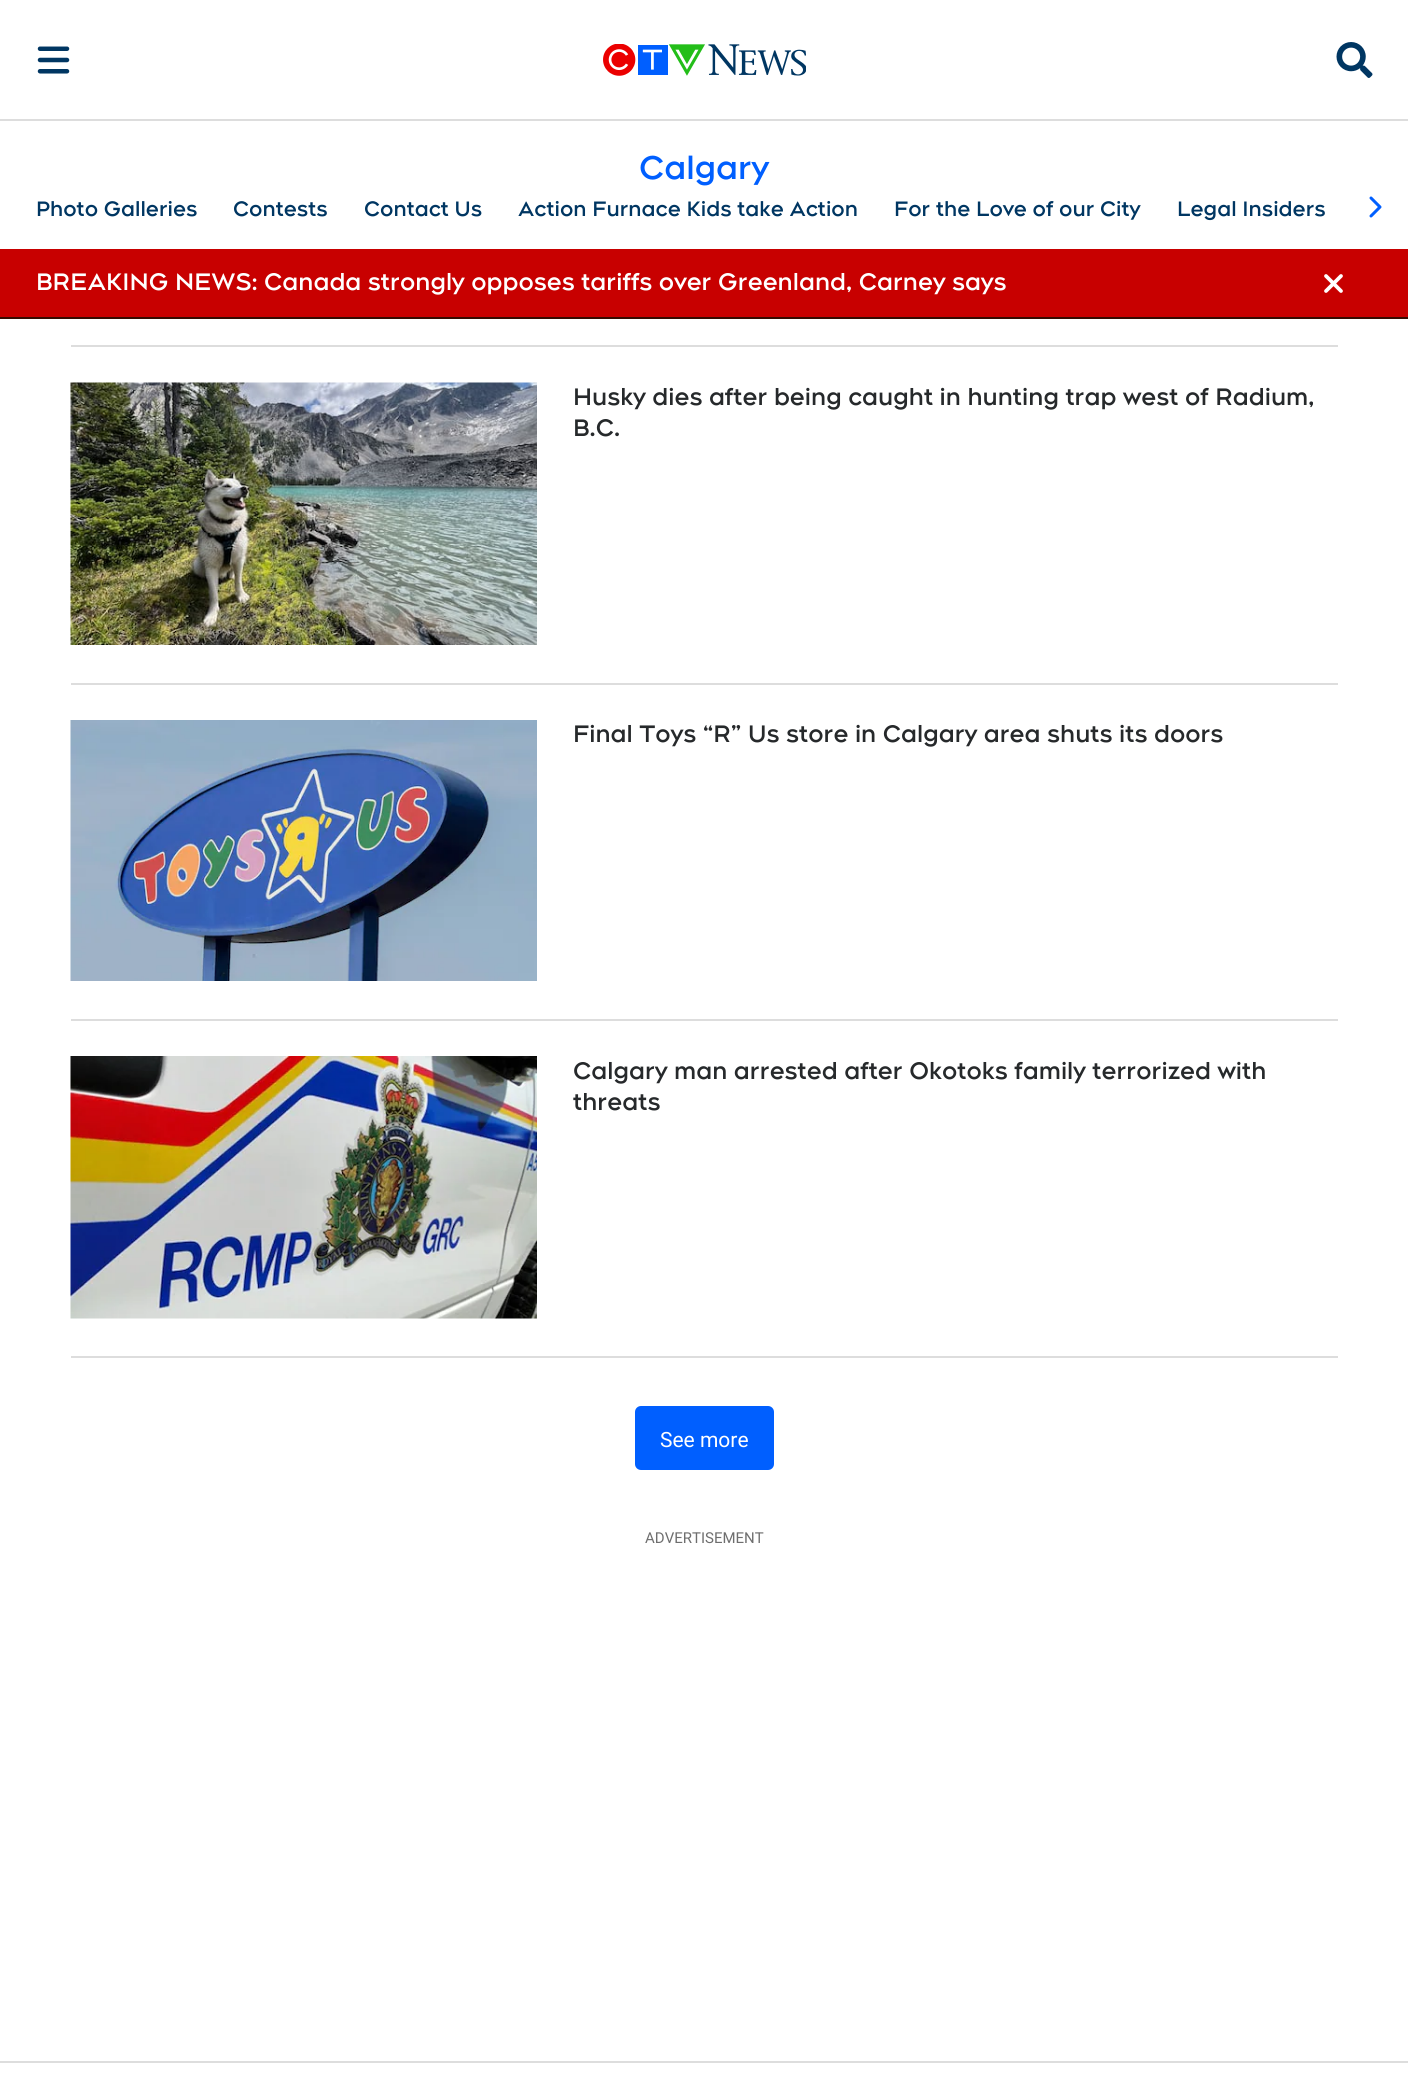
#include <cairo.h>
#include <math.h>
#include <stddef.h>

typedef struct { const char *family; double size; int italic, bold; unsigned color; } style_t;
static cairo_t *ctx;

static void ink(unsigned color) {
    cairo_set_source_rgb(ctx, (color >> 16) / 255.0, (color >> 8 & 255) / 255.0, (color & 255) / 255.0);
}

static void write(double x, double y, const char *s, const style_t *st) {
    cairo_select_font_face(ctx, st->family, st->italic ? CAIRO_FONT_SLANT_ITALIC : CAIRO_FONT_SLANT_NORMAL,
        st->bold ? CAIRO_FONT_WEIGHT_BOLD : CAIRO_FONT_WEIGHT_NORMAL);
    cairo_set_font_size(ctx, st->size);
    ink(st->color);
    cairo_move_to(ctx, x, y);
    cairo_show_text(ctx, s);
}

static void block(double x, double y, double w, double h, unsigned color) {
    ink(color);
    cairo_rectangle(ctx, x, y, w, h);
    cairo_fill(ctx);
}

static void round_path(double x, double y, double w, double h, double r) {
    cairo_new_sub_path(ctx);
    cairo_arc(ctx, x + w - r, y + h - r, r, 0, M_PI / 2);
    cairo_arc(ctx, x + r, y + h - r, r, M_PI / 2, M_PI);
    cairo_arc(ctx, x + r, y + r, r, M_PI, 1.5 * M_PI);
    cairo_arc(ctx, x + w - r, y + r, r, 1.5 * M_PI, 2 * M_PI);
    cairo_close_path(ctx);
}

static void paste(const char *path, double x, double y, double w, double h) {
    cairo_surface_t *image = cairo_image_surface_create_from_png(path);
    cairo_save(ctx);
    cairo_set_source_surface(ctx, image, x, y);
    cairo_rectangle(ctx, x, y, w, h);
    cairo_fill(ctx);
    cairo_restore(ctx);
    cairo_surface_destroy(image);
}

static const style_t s1 = {"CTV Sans", 33, 0, 1, 0x005fff};
static const style_t s2 = {"CTV Sans", 21, 0, 1, 0x003662};
static const style_t s3 = {"CTV Sans", 24, 0, 1, 0xffffff};
static const style_t s4 = {"CTV Sans", 24, 0, 1, 0x26292b};
static const style_t s5 = {"Roboto", 21, 0, 0, 0xffffff};
static const style_t s6 = {"Roboto", 15, 0, 0, 0x6e6e6e};

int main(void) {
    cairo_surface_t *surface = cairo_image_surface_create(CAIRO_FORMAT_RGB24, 1408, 2086);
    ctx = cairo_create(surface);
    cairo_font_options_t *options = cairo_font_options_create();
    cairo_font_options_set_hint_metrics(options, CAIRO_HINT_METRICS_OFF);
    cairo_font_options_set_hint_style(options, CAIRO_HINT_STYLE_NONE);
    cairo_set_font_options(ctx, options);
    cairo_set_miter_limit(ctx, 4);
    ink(0xffffff);
    cairo_paint(ctx);
    block(0, 119, 1408, 2, 0xdddddd);
    paste("pic1.png", 37, 46, 33, 28);
    paste("pic2.png", 603, 44, 203, 32);
    paste("pic3.png", 1336, 42, 37, 36);
    write(639, 179, "Calgary", &s1);
    write(36, 216, "Photo Galleries", &s2);
    write(233, 216, "Contests", &s2);
    write(364, 216, "Contact Us", &s2);
    write(518, 216, "Action Furnace Kids take Action", &s2);
    write(894, 216, "For the Love of our City", &s2);
    write(1177, 216, "Legal Insiders", &s2);
    paste("pic4.png", 1369, 196, 13, 22);
    block(0, 249, 1408, 68, 0xc80000);
    block(0, 317, 1408, 2, 0x370a00);
    write(36, 290, "BREAKING NEWS: Canada strongly opposes tariffs over Greenland, Carney says", &s3);
    paste("pic5.png", 1324, 274, 19, 19);
    block(71, 345, 1267, 2, 0xdddddd);
    paste("pic6.png", 70, 382, 467, 263);
    write(573, 405, "Husky dies after being caught in hunting trap west of Radium,", &s4);
    write(573, 436, "B.C.", &s4);
    block(71, 683, 1267, 2, 0xdddddd);
    paste("pic7.png", 70, 720, 467, 261);
    write(573, 742, "Final Toys “R” Us store in Calgary area shuts its doors", &s4);
    block(71, 1019, 1267, 2, 0xdddddd);
    paste("pic8.png", 70, 1056, 467, 263);
    write(573, 1079, "Calgary man arrested after Okotoks family terrorized with", &s4);
    write(573, 1110, "threats", &s4);
    block(71, 1356, 1267, 2, 0xdddddd);
    ink(0x005fff);
    round_path(635, 1406, 139, 64, 6);
    cairo_fill(ctx);
    write(660, 1447, "See more", &s5);
    write(645, 1543, "ADVERTISEMENT", &s6);
    block(0, 2061, 1408, 2, 0xdddddd);
    cairo_surface_write_to_png(surface, "screenshot.png");
    cairo_font_options_destroy(options);
    cairo_destroy(ctx);
    cairo_surface_destroy(surface);
    return 0;
}
